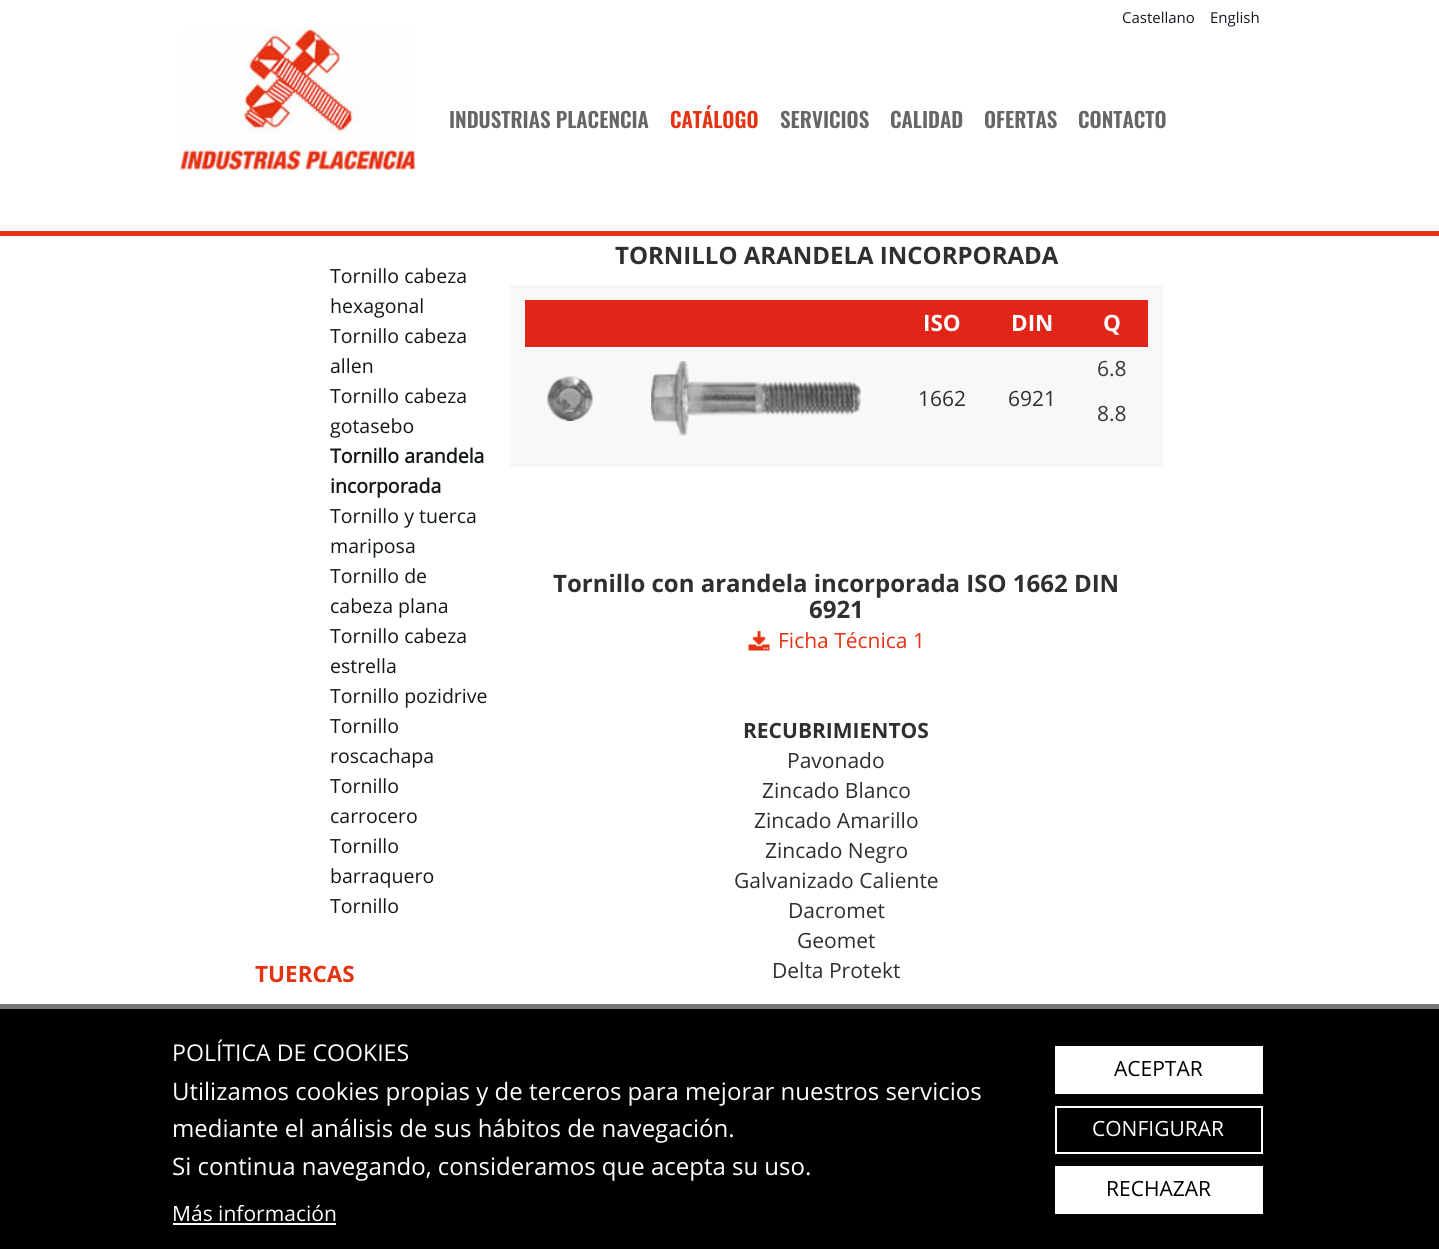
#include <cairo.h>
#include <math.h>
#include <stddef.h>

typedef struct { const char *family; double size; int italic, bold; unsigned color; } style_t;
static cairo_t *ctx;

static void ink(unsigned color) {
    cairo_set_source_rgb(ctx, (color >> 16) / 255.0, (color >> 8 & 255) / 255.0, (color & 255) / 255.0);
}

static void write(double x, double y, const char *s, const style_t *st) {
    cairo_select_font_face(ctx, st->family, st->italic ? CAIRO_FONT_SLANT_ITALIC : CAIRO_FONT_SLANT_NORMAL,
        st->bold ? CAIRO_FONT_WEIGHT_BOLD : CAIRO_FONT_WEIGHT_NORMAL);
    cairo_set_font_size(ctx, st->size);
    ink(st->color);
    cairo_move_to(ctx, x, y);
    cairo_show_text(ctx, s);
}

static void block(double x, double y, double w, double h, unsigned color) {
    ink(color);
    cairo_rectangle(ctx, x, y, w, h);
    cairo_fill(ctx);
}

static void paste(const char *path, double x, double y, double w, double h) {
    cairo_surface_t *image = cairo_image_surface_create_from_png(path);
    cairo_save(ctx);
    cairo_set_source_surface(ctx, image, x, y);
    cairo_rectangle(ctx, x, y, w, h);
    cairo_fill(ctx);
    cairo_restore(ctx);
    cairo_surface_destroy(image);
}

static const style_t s1 = {"Open Sans", 15, 0, 0, 0x15191f};
static const style_t s2 = {"Oswald SemiBold", 21, 0, 0, 0x666666};
static const style_t s3 = {"Oswald SemiBold", 21, 0, 0, 0xe53312};
static const style_t s4 = {"Open Sans", 19.5, 0, 0, 0x131819};
static const style_t s5 = {"Open Sans", 19.5, 0, 1, 0x131819};
static const style_t s6 = {"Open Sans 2", 22.5, 0, 1, 0xe53312};
static const style_t s7 = {"Open Sans 2", 24, 0, 1, 0x2f2f2f};
static const style_t s8 = {"Open Sans 2", 22.5, 0, 1, 0xffffff};
static const style_t s9 = {"Open Sans", 21, 0, 0, 0x2f2f2f};
static const style_t s10 = {"Open Sans", 21, 0, 0, 0x393939};
static const style_t s11 = {"Open Sans", 21, 0, 0, 0xe53312};
static const style_t s12 = {"Open Sans 2", 21, 0, 1, 0x2f2f2f};
static const style_t s13 = {"Open Sans", 23.1, 0, 0, 0xffffff};
static const style_t s14 = {"Open Sans", 24, 0, 0, 0xffffff};
static const style_t s15 = {"Open Sans", 21, 0, 0, 0xffffff};
static const style_t s16 = {"Open Sans", 21, 0, 0, 0x000000};

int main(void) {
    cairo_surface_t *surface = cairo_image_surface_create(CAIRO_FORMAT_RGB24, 1439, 1249);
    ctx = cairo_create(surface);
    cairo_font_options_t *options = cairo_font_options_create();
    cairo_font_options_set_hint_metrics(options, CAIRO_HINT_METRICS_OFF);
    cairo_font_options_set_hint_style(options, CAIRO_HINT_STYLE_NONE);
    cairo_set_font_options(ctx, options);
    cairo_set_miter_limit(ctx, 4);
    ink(0xffffff);
    cairo_paint(ctx);
    block(0, 231, 1439, 5, 0xe63312);
    write(1122, 23, "Castellano", &s1);
    write(1210, 23, "English", &s1);
    paste("pic1.png", 180, 30, 236, 141);
    write(449, 128, "INDUSTRIAS PLACENCIA", &s2);
    write(670, 128, "CATÁLOGO", &s3);
    write(780, 128, "SERVICIOS", &s2);
    write(890, 128, "CALIDAD", &s2);
    write(984, 128, "OFERTAS", &s2);
    write(1078, 128, "CONTACTO", &s2);
    write(330, 283, "Tornillo cabeza", &s4);
    write(330, 313, "hexagonal", &s4);
    write(330, 343, "Tornillo cabeza", &s4);
    write(330, 373, "allen", &s4);
    write(330, 403, "Tornillo cabeza", &s4);
    write(330, 433, "gotasebo", &s4);
    write(330, 463, "Tornillo arandela", &s5);
    write(330, 493, "incorporada", &s5);
    write(330, 523, "Tornillo y tuerca", &s4);
    write(330, 553, "mariposa", &s4);
    write(330, 583, "Tornillo de", &s4);
    write(330, 613, "cabeza plana", &s4);
    write(330, 643, "Tornillo cabeza", &s4);
    write(330, 673, "estrella", &s4);
    write(330, 703, "Tornillo pozidrive", &s4);
    write(330, 733, "Tornillo", &s4);
    write(330, 763, "roscachapa", &s4);
    write(330, 793, "Tornillo", &s4);
    write(330, 823, "carrocero", &s4);
    write(330, 853, "Tornillo", &s4);
    write(330, 883, "barraquero", &s4);
    write(330, 913, "Tornillo", &s4);
    write(255, 982, "TUERCAS", &s6);
    write(615, 264, "TORNILLO ARANDELA INCORPORADA", &s7);
    block(525, 285, 623, 15, 0xf8f8f8);
    block(1148, 285, 15, 167, 0xf8f8f8);
    block(525, 452, 638, 15, 0xf8f8f8);
    block(510, 285, 15, 182, 0xf8f8f8);
    block(525, 300, 623, 47, 0xe12518);
    write(923, 331, "ISO", &s8);
    write(1011, 331, "DIN", &s8);
    write(1103, 331, "Q", &s8);
    block(525, 347, 623, 105, 0xf8f8f8);
    paste("pic2.png", 547, 376, 46, 45);
    paste("pic3.png", 651, 361, 210, 75);
    write(918, 406, "1662", &s9);
    write(1008, 406, "6921", &s9);
    write(1097, 376, "6.8", &s10);
    write(1097, 421, "8.8", &s10);
    write(553, 592, "Tornillo con arandela incorporada ISO 1662 DIN", &s7);
    write(809, 618, "6921", &s7);
    paste("pic4.png", 748, 630, 22, 21);
    write(778, 648, "Ficha Técnica 1", &s11);
    write(743, 738, "RECUBRIMIENTOS", &s12);
    write(787, 768, "Pavonado", &s9);
    write(762, 798, "Zincado Blanco", &s9);
    write(754, 828, "Zincado Amarillo", &s9);
    write(765, 858, "Zincado Negro", &s9);
    write(734, 888, "Galvanizado Caliente", &s9);
    write(788, 918, "Dacromet", &s9);
    write(797, 948, "Geomet", &s9);
    write(772, 978, "Delta Protekt", &s9);
    block(0, 1009, 1439, 240, 0x000000);
    block(0, 1004, 1439, 5, 0x777777);
    write(172, 1061, "POLÍTICA DE COOKIES", &s13);
    write(172, 1100, "Utilizamos cookies propias y de terceros para mejorar nuestros servicios", &s14);
    write(172, 1137, "mediante el análisis de sus hábitos de navegación.", &s14);
    write(172, 1175, "Si continua navegando, consideramos que acepta su uso.", &s14);
    write(172, 1221, "Más información", &s15);
    block(173, 1223, 163, 2, 0xffffff);
    block(1055, 1046, 208, 48, 0xffffff);
    write(1114, 1076, "ACEPTAR", &s16);
    cairo_rectangle(ctx, 1056, 1107, 206, 46);
    ink(0xffffff);
    cairo_stroke(ctx);
    write(1092, 1136, "CONFIGURAR", &s15);
    block(1055, 1166, 208, 48, 0xffffff);
    write(1106, 1196, "RECHAZAR", &s16);
    cairo_surface_write_to_png(surface, "screenshot.png");
    cairo_font_options_destroy(options);
    cairo_destroy(ctx);
    cairo_surface_destroy(surface);
    return 0;
}
